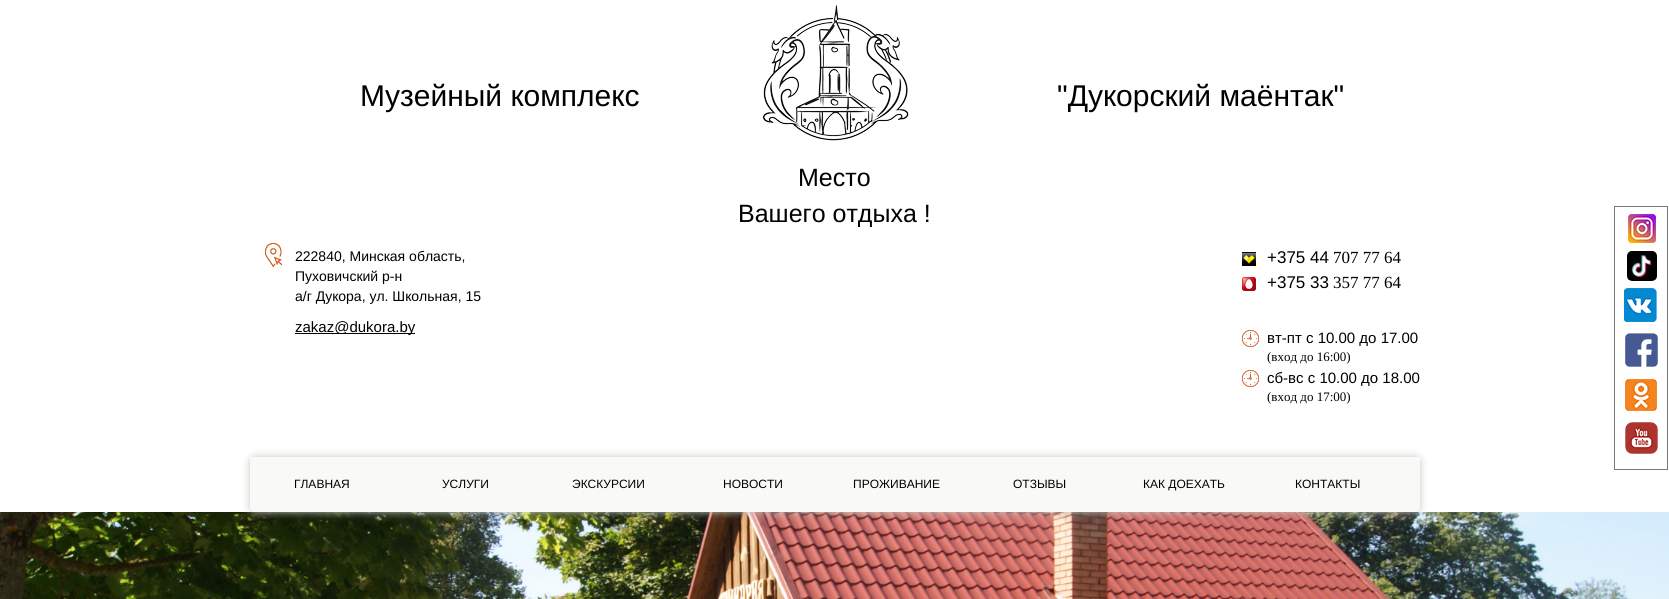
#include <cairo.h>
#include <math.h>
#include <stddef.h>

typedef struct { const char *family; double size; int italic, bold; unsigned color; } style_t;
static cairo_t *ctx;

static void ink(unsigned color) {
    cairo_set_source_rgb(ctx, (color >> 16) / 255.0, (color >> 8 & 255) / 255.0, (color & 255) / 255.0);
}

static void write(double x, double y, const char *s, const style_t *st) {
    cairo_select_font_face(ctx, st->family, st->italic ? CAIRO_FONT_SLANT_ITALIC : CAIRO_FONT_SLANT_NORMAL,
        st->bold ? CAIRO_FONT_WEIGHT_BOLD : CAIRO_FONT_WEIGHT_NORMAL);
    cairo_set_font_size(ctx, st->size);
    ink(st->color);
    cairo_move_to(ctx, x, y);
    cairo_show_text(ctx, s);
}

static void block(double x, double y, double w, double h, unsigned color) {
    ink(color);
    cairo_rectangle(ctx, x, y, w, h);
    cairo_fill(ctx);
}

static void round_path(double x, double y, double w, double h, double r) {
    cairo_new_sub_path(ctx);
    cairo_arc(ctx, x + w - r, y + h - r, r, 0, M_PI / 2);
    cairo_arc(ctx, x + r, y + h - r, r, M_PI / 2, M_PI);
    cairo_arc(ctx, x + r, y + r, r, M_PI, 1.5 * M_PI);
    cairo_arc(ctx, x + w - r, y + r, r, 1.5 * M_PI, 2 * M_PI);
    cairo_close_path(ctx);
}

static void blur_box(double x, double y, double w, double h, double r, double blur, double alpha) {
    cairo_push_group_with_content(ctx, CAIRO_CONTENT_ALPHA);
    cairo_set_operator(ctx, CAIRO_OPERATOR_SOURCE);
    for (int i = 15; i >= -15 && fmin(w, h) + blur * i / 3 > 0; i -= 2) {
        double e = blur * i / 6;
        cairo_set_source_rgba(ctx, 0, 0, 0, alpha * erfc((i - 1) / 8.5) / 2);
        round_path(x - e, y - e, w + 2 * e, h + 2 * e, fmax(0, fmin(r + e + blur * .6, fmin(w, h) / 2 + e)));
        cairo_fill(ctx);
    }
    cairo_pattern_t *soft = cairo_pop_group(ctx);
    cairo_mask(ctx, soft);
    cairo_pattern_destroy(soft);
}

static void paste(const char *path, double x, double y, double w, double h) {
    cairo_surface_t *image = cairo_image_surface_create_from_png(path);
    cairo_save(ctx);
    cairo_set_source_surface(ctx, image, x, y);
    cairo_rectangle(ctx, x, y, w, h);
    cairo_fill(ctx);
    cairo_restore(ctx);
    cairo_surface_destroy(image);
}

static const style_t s1 = {"Liberation Sans", 30, 0, 0, 0x000000};
static const style_t s2 = {"Liberation Sans", 25, 0, 0, 0x000000};
static const style_t s3 = {"Liberation Sans", 14, 0, 0, 0x000000};
static const style_t s4 = {"Liberation Sans", 15, 0, 0, 0x000000};
static const style_t s5 = {"Liberation Sans", 17, 0, 0, 0x000000};
static const style_t s6 = {"Liberation Serif", 17, 0, 0, 0x000000};
static const style_t s7 = {"Liberation Serif", 13, 0, 0, 0x000000};
static const style_t s8 = {"Liberation Sans", 12, 0, 0, 0x000000};

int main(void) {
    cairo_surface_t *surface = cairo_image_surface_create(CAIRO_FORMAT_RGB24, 1669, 599);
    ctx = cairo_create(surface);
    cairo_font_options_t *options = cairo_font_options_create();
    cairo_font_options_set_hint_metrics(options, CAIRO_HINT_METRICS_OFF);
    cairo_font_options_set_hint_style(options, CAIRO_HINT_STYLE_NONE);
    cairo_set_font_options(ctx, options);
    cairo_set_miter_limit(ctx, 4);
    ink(0xffffff);
    cairo_paint(ctx);
    write(360, 106, "Музейный комплекс", &s1);
    write(1057, 106, "\"Дукорский маёнтак\"", &s1);
    paste("pic1.png", 762, 5, 147, 136);
    write(798, 186, "Место", &s2);
    write(738, 222, "Вашего отдыха !", &s2);
    paste("pic2.png", 265, 243, 17, 24);
    write(295, 261, "222840, Минская область,", &s3);
    write(295, 281, "Пуховичский р-н", &s3);
    write(295, 301, "а/г Дукора, ул. Школьная, 15", &s3);
    block(295, 333, 120, 1, 0x000000);
    write(295, 332, "zakaz@dukora.by", &s4);
    paste("pic3.png", 1242, 252, 14, 14);
    write(1267, 263, "+375 44", &s5);
    write(1333, 263, "707 77 64", &s6);
    paste("pic4.png", 1242, 277, 14, 14);
    write(1267, 288, "+375 33", &s5);
    write(1333, 288, "357 77 64", &s6);
    paste("pic5.png", 1242, 330, 17, 17);
    write(1267, 343, "вт-пт с 10.00 до 17.00", &s4);
    write(1267, 361, "(вход до 16:00)", &s7);
    paste("pic5.png", 1242, 370, 17, 17);
    write(1267, 383, "сб-вс с 10.00 до 18.00", &s4);
    write(1267, 401, "(вход до 17:00)", &s7);
    paste("pic6.png", 0, 512, 1669, 87);
    ink(0xc5c6c1);
    blur_box(250, 457, 1170, 55, 5, 4, 1);
    ink(0xf9f9f7);
    cairo_new_path(ctx);
    cairo_move_to(ctx, 250, 457);
    cairo_line_to(ctx, 1420, 457);
    cairo_line_to(ctx, 1420, 507);
    cairo_curve_to(ctx, 1420, 510, 1418, 512, 1415, 512);
    cairo_line_to(ctx, 255, 512);
    cairo_curve_to(ctx, 252, 512, 250, 510, 250, 507);
    cairo_close_path(ctx);
    cairo_fill(ctx);
    write(294, 488, "ГЛАВНАЯ", &s8);
    write(442, 488, "УСЛУГИ", &s8);
    write(572, 488, "ЭКСКУРСИИ", &s8);
    write(723, 488, "НОВОСТИ", &s8);
    write(853, 488, "ПРОЖИВАНИЕ", &s8);
    write(1013, 488, "ОТЗЫВЫ", &s8);
    write(1143, 488, "КАК ДОЕХАТЬ", &s8);
    write(1295, 488, "КОНТАКТЫ", &s8);
    cairo_rectangle(ctx, 1614.5, 206.5, 53, 263);
    ink(0x797979);
    cairo_set_line_width(ctx, 1);
    cairo_stroke(ctx);
    paste("pic7.png", 1628, 214, 28, 29);
    paste("pic8.png", 1627, 251, 30, 30);
    paste("pic9.png", 1624, 288, 33, 34);
    paste("pic10.png", 1625, 333, 33, 34);
    paste("pic11.png", 1625, 379, 32, 32);
    paste("pic12.png", 1625, 420, 35, 34);
    cairo_surface_write_to_png(surface, "screenshot.png");
    cairo_font_options_destroy(options);
    cairo_destroy(ctx);
    cairo_surface_destroy(surface);
    return 0;
}
